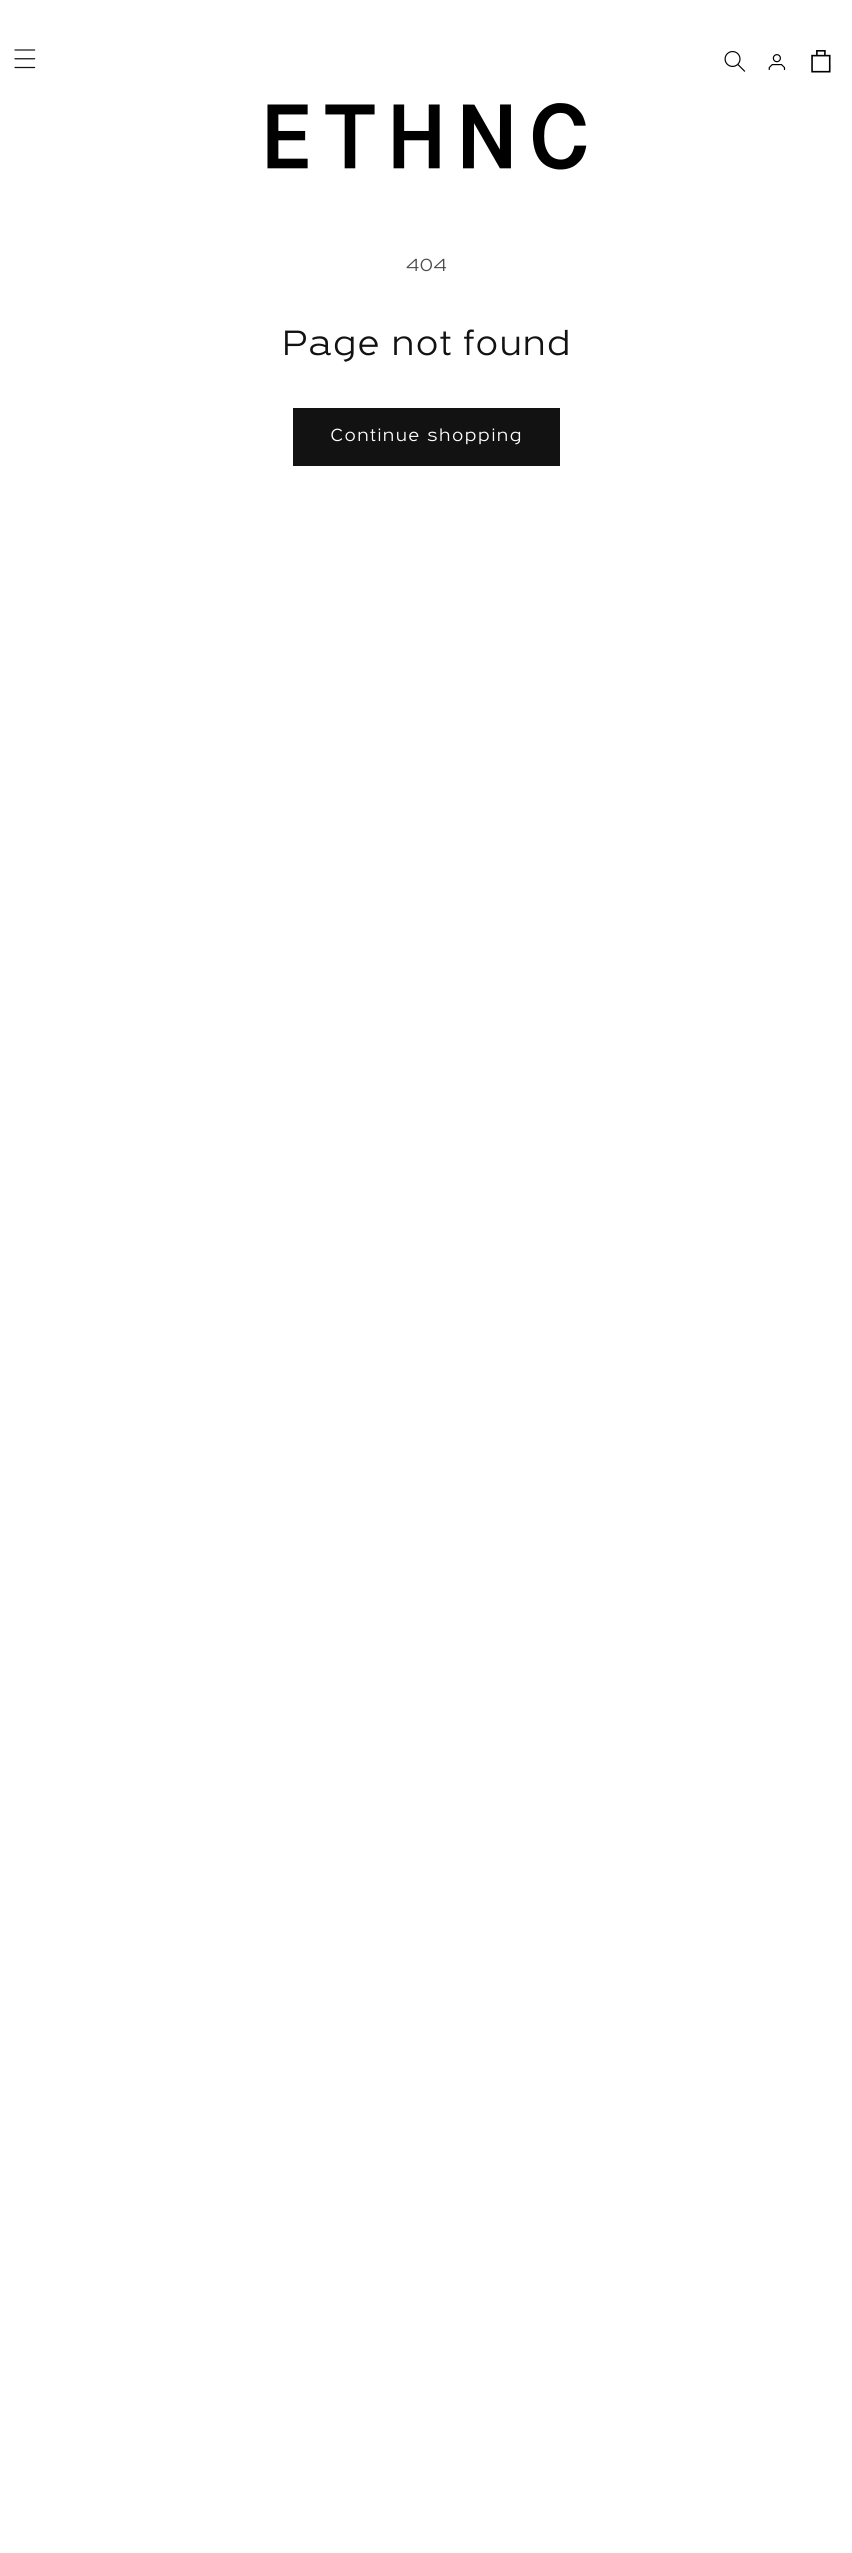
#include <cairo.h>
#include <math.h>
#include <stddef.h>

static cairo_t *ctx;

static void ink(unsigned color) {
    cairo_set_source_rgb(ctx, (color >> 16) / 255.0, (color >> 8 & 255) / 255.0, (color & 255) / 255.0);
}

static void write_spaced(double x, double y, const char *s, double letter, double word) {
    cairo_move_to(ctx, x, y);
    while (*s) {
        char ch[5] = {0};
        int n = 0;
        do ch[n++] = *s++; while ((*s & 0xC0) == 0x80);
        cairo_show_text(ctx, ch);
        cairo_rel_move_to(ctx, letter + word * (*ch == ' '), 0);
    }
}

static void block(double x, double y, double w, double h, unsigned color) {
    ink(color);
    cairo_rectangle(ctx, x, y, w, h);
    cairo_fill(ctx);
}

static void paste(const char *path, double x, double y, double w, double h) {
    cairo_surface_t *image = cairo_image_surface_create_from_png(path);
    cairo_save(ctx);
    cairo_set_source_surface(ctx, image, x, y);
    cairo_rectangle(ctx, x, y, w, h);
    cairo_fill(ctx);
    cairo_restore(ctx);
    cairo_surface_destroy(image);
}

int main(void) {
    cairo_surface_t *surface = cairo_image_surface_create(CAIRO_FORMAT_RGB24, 852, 2553);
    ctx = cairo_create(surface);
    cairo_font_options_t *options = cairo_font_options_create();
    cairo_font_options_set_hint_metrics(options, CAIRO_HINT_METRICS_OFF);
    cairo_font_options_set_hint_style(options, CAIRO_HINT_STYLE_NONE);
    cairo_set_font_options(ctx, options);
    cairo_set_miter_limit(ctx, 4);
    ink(0xffffff);
    cairo_paint(ctx);
    paste("pic1.png", 14, 49, 22, 20);
    paste("pic2.png", 724, 51, 22, 21);
    paste("pic3.png", 768, 54, 18, 16);
    paste("pic4.png", 811, 50, 20, 23);
    paste("pic5.png", 267, 103, 320, 67);
    cairo_select_font_face(ctx, "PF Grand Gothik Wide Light", CAIRO_FONT_SLANT_NORMAL, CAIRO_FONT_WEIGHT_NORMAL);
    cairo_set_font_size(ctx, 18.75);
    ink(0x4d4d4d);
    write_spaced(406, 271, "404", 0.75, 0);
    cairo_set_font_size(ctx, 37.5);
    ink(0x121212);
    write_spaced(282, 355, "Page not found", 0.75, 0);
    block(293, 408, 267, 58, 0x121212);
    cairo_set_font_size(ctx, 18.75);
    ink(0xffffff);
    write_spaced(330, 441, "Continue shopping", 1.25, 0);
    cairo_surface_write_to_png(surface, "screenshot.png");
    cairo_font_options_destroy(options);
    cairo_destroy(ctx);
    cairo_surface_destroy(surface);
    return 0;
}
